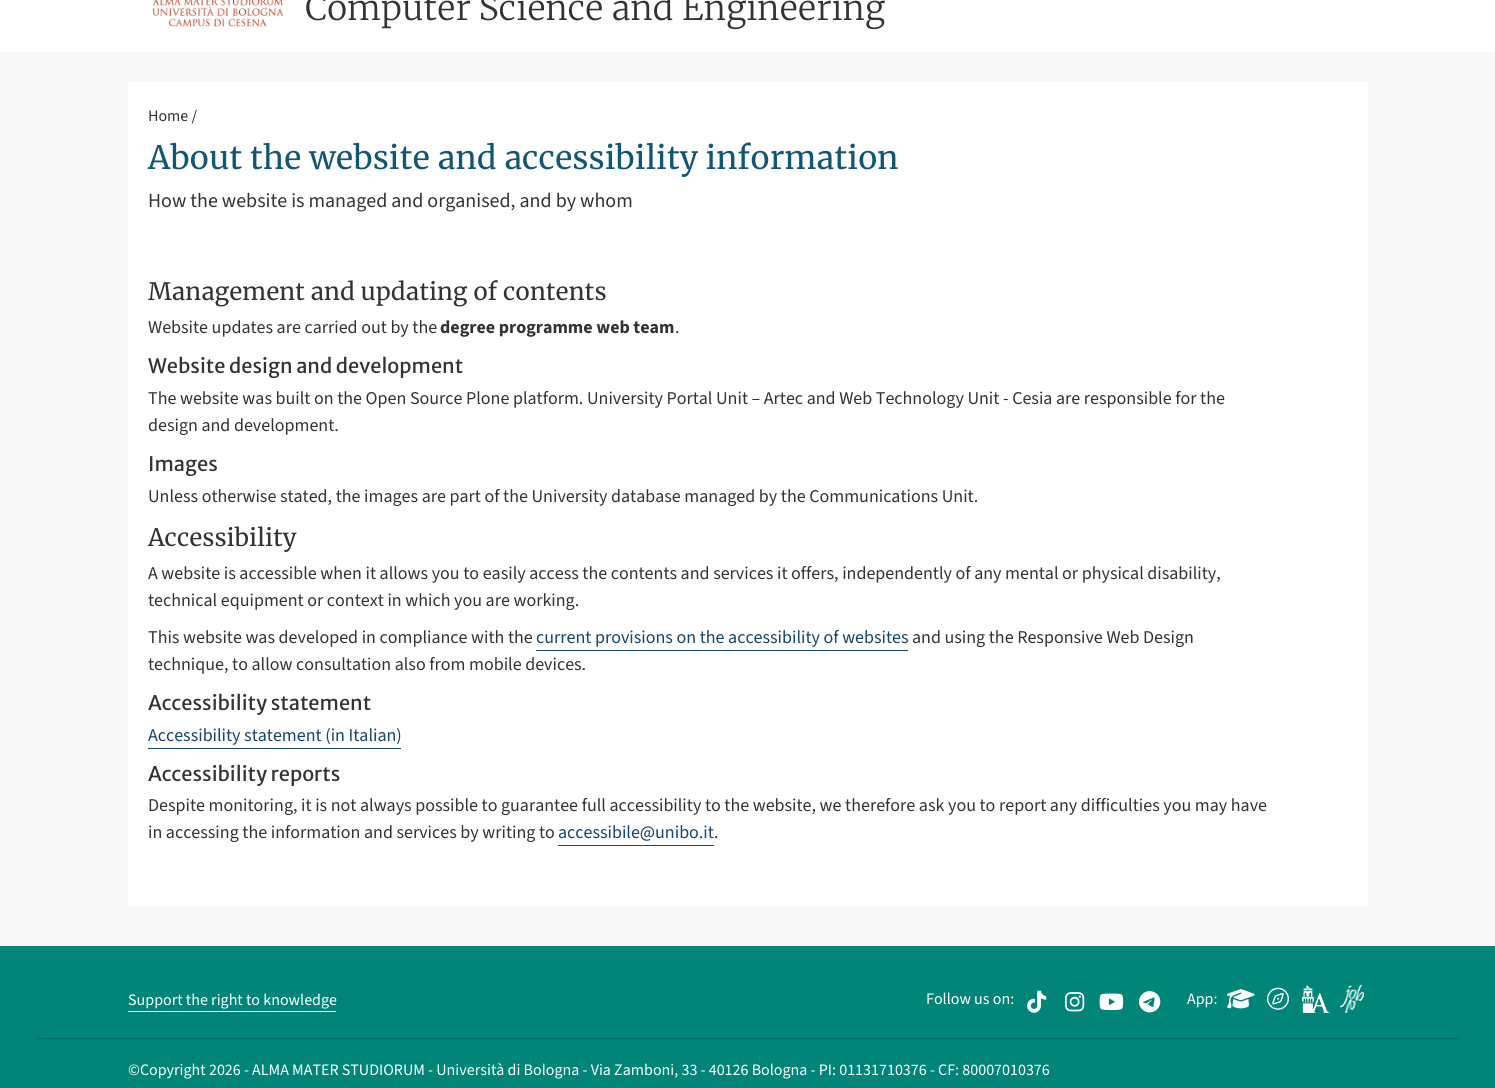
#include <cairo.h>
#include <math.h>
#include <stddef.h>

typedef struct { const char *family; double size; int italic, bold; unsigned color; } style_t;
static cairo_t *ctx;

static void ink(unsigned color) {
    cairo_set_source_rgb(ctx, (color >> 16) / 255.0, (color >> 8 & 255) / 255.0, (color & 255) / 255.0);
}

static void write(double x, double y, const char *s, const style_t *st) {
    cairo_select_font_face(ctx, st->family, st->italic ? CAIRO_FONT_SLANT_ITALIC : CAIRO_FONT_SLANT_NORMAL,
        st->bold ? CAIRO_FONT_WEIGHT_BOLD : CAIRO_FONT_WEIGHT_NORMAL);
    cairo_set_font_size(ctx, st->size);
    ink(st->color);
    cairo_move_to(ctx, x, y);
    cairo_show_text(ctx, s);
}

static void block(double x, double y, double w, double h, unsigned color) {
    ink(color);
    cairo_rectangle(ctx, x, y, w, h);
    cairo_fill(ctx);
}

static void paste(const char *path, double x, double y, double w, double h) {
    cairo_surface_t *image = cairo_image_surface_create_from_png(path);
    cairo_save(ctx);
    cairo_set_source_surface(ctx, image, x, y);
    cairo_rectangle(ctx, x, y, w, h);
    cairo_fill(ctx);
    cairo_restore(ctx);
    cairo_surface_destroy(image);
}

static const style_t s1 = {"Merriweather Light", 34, 0, 0, 0x333333};
static const style_t s2 = {"Source Sans 3", 16, 0, 0, 0x333333};
static const style_t s3 = {"Merriweather", 32, 0, 0, 0x115675};
static const style_t s4 = {"Source Sans 3", 20, 0, 0, 0x333333};
static const style_t s5 = {"Merriweather", 24, 0, 0, 0x333333};
static const style_t s6 = {"Source Sans 3", 18, 0, 0, 0x333333};
static const style_t s7 = {"Source Sans 3", 18, 0, 1, 0x333333};
static const style_t s8 = {"Merriweather Sans", 20, 0, 0, 0x333333};
static const style_t s9 = {"Source Sans 3", 18, 0, 0, 0x13456e};
static const style_t s10 = {"Source Sans 3", 16, 0, 0, 0xffffff};

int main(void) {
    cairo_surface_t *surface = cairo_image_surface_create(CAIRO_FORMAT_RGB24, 1495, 1088);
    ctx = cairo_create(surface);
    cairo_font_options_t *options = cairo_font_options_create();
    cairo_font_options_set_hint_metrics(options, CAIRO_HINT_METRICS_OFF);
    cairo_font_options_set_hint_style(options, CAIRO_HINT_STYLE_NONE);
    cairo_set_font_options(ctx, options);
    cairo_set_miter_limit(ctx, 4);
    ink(0xffffff);
    cairo_paint(ctx);
    paste("pic1.png", 152, 0, 132, 27);
    write(305, 20, "Computer Science and Engineering", &s1);
    block(0, 52, 1495, 894, 0xf8f8f8);
    block(128, 82, 1240, 824, 0xffffff);
    write(148, 121, "Home /", &s2);
    write(148, 169, "About the website and accessibility information", &s3);
    write(148, 207, "How the website is managed and organised, and by whom", &s4);
    write(148, 300, "Management and updating of contents", &s5);
    write(148, 333, "Website updates are carried out by the", &s6);
    write(440, 333, "degree programme web team", &s7);
    write(675, 333, ".", &s6);
    write(148, 373, "Website design and development", &s8);
    write(148, 404, "The website was built on the Open Source Plone platform. University Portal Unit – Artec and Web Technology Unit - Cesia are responsible for the", &s6);
    write(148, 431, "design and development.", &s6);
    write(148, 471, "Images", &s8);
    write(148, 502, "Unless otherwise stated, the images are part of the University database managed by the Communications Unit.", &s6);
    write(148, 546, "Accessibility", &s5);
    write(148, 579, "A website is accessible when it allows you to easily access the contents and services it offers, independently of any mental or physical disability,", &s6);
    write(148, 606, "technical equipment or context in which you are working.", &s6);
    write(148, 643, "This website was developed in compliance with the", &s6);
    write(536, 643, "current provisions on the accessibility of websites", &s9);
    block(536, 650, 372, 1, 0x13456e);
    write(912, 643, "and using the Responsive Web Design", &s6);
    write(148, 670, "technique, to allow consultation also from mobile devices.", &s6);
    write(148, 710, "Accessibility statement", &s8);
    write(148, 741, "Accessibility statement (in Italian)", &s9);
    block(148, 748, 253, 1, 0x13456e);
    write(148, 781, "Accessibility reports", &s8);
    write(148, 811, "Despite monitoring, it is not always possible to guarantee full accessibility to the website, we therefore ask you to report any difficulties you may have", &s6);
    write(148, 838, "in accessing the information and services by writing to", &s6);
    write(558, 838, "accessibile@unibo.it", &s9);
    block(558, 845, 156, 1, 0x13456e);
    write(714, 838, ".", &s6);
    block(0, 946, 1495, 142, 0x008578);
    write(128, 1005, "Support the right to knowledge", &s10);
    block(128, 1011, 208, 1, 0xffffff);
    write(926, 1004, "Follow us on:", &s10);
    paste("pic2.png", 1027, 990, 20, 23);
    paste("pic3.png", 1065, 992, 20, 20);
    paste("pic4.png", 1099, 993, 25, 17);
    paste("pic5.png", 1139, 991, 22, 22);
    write(1187, 1004, "App:", &s10);
    paste("pic6.png", 1227, 989, 28, 20);
    paste("pic7.png", 1267, 987, 22, 23);
    paste("pic8.png", 1302, 985, 28, 28);
    paste("pic9.png", 1340, 985, 24, 28);
    block(36, 1038, 1423, 1, 0x006f64);
    write(128, 1075, "©Copyright 2026 - ALMA MATER STUDIORUM - Università di Bologna - Via Zamboni, 33 - 40126 Bologna - PI: 01131710376 - CF: 80007010376", &s10);
    cairo_surface_write_to_png(surface, "screenshot.png");
    cairo_font_options_destroy(options);
    cairo_destroy(ctx);
    cairo_surface_destroy(surface);
    return 0;
}
